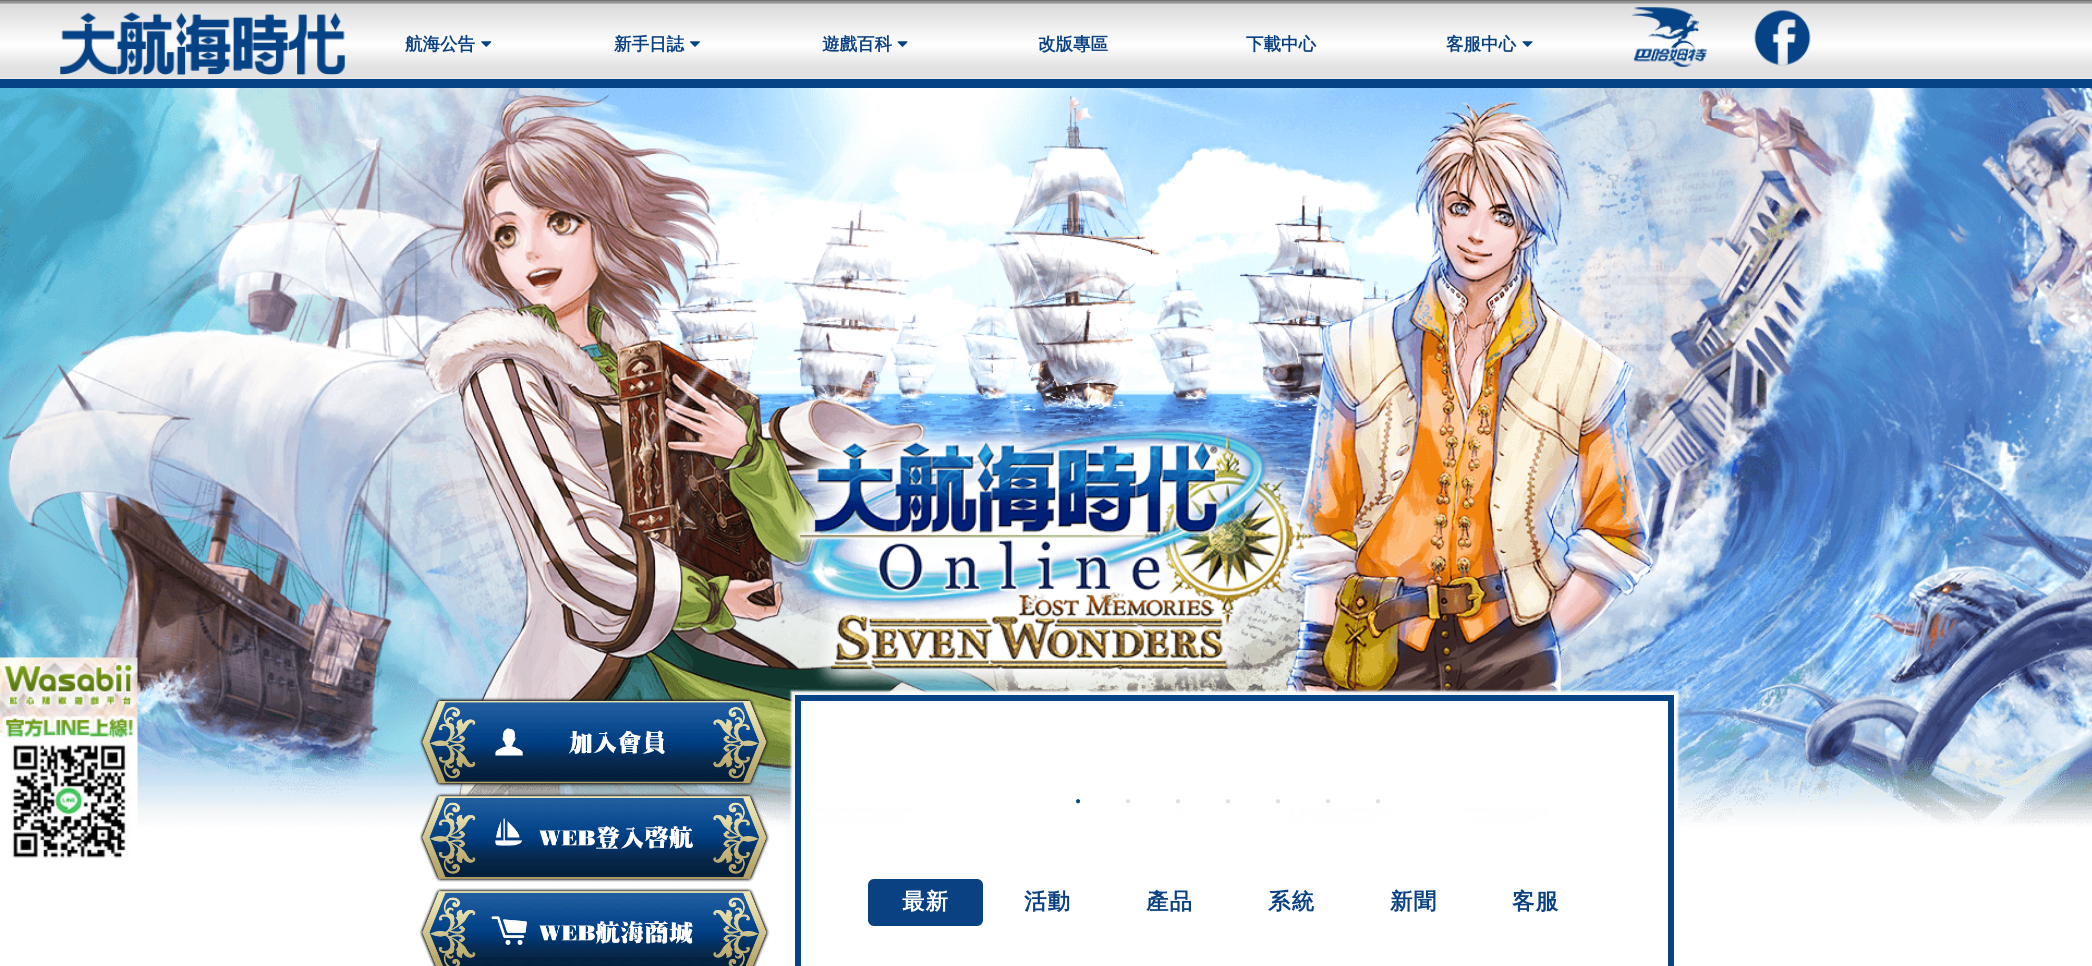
#include <cairo.h>
#include <math.h>
#include <stddef.h>

typedef struct { const char *family; double size; int italic, bold; unsigned color; } style_t;
static cairo_t *ctx;

static void ink(unsigned color) {
    cairo_set_source_rgb(ctx, (color >> 16) / 255.0, (color >> 8 & 255) / 255.0, (color & 255) / 255.0);
}

static void write(double x, double y, const char *s, const style_t *st) {
    cairo_select_font_face(ctx, st->family, st->italic ? CAIRO_FONT_SLANT_ITALIC : CAIRO_FONT_SLANT_NORMAL,
        st->bold ? CAIRO_FONT_WEIGHT_BOLD : CAIRO_FONT_WEIGHT_NORMAL);
    cairo_set_font_size(ctx, st->size);
    ink(st->color);
    cairo_move_to(ctx, x, y);
    cairo_show_text(ctx, s);
}

static void write_spaced(double x, double y, const char *s, double letter, double word) {
    cairo_move_to(ctx, x, y);
    while (*s) {
        char ch[5] = {0};
        int n = 0;
        do ch[n++] = *s++; while ((*s & 0xC0) == 0x80);
        cairo_show_text(ctx, ch);
        cairo_rel_move_to(ctx, letter + word * (*ch == ' '), 0);
    }
}

static void block(double x, double y, double w, double h, unsigned color) {
    ink(color);
    cairo_rectangle(ctx, x, y, w, h);
    cairo_fill(ctx);
}

static void round_path(double x, double y, double w, double h, double r) {
    cairo_new_sub_path(ctx);
    cairo_arc(ctx, x + w - r, y + h - r, r, 0, M_PI / 2);
    cairo_arc(ctx, x + r, y + h - r, r, M_PI / 2, M_PI);
    cairo_arc(ctx, x + r, y + r, r, M_PI, 1.5 * M_PI);
    cairo_arc(ctx, x + w - r, y + r, r, 1.5 * M_PI, 2 * M_PI);
    cairo_close_path(ctx);
}

static void blur_box(double x, double y, double w, double h, double r, double blur, double alpha) {
    cairo_push_group_with_content(ctx, CAIRO_CONTENT_ALPHA);
    cairo_set_operator(ctx, CAIRO_OPERATOR_SOURCE);
    for (int i = 15; i >= -15 && fmin(w, h) + blur * i / 3 > 0; i -= 2) {
        double e = blur * i / 6;
        cairo_set_source_rgba(ctx, 0, 0, 0, alpha * erfc((i - 1) / 8.5) / 2);
        round_path(x - e, y - e, w + 2 * e, h + 2 * e, fmax(0, fmin(r + e + blur * .6, fmin(w, h) / 2 + e)));
        cairo_fill(ctx);
    }
    cairo_pattern_t *soft = cairo_pop_group(ctx);
    cairo_mask(ctx, soft);
    cairo_pattern_destroy(soft);
}

static void paste(const char *path, double x, double y, double w, double h) {
    cairo_surface_t *image = cairo_image_surface_create_from_png(path);
    cairo_save(ctx);
    cairo_set_source_surface(ctx, image, x, y);
    cairo_rectangle(ctx, x, y, w, h);
    cairo_fill(ctx);
    cairo_restore(ctx);
    cairo_surface_destroy(image);
}

static const style_t s1 = {"WenQuanYi Zen Hei", 17.5, 0, 1, 0x0a4182};
static const style_t s2 = {"Liberation Serif", 17.5, 0, 0, 0x004983};
static const style_t s3 = {"Liberation Serif", 17.5, 0, 0, 0xe0e0e2};

int main(void) {
    cairo_surface_t *surface = cairo_image_surface_create(CAIRO_FORMAT_RGB24, 2092, 966);
    ctx = cairo_create(surface);
    cairo_font_options_t *options = cairo_font_options_create();
    cairo_font_options_set_hint_metrics(options, CAIRO_HINT_METRICS_OFF);
    cairo_font_options_set_hint_style(options, CAIRO_HINT_STYLE_NONE);
    cairo_set_font_options(ctx, options);
    cairo_set_miter_limit(ctx, 4);
    cairo_pattern_t *gradient;
    ink(0xffffff);
    cairo_paint(ctx);
    gradient = cairo_pattern_create_linear(1046, 0, 1046, 88);
    cairo_pattern_add_color_stop_rgba(gradient, 0, 0.29, 0.29, 0.29, 1);
    cairo_pattern_add_color_stop_rgba(gradient, 0.01, 0.573, 0.573, 0.573, 1);
    cairo_pattern_add_color_stop_rgba(gradient, 0.03, 0.573, 0.573, 0.573, 1);
    cairo_pattern_add_color_stop_rgba(gradient, 0.05, 0.855, 0.855, 0.855, 1);
    cairo_pattern_add_color_stop_rgba(gradient, 0.51, 1, 1, 1, 1);
    cairo_pattern_add_color_stop_rgba(gradient, 0.76, 0.886, 0.886, 0.886, 1);
    cairo_pattern_add_color_stop_rgba(gradient, 0.88, 0.886, 0.886, 0.886, 1);
    cairo_pattern_add_color_stop_rgba(gradient, 0.89, 1, 1, 1, 1);
    cairo_pattern_add_color_stop_rgba(gradient, 0.9, 0.608, 0.608, 0.608, 1);
    cairo_pattern_add_color_stop_rgba(gradient, 0.9, 0.02, 0.263, 0.525, 1);
    cairo_set_source(ctx, gradient);
    cairo_pattern_destroy(gradient);
    cairo_rectangle(ctx, 0, 0, 2092, 88);
    cairo_fill(ctx);
    paste("pic1.png", 60, 12, 285, 63);
    write(405, 50, "航海公告", &s1);
    paste("pic2.png", 481, 41, 11, 6);
    write(614, 50, "新手日誌", &s1);
    paste("pic3.png", 690, 41, 10, 6);
    write(822, 50, "遊戲百科", &s1);
    paste("pic4.png", 897, 41, 11, 6);
    write(1038, 50, "改版專區", &s1);
    write(1246, 50, "下載中心", &s1);
    write(1446, 50, "客服中心", &s1);
    paste("pic4.png", 1522, 41, 11, 6);
    paste("pic5.png", 1631, 7, 76, 60);
    paste("pic6.png", 1754, 10, 57, 56);
    paste("pic7.png", 0, 88, 2092, 739);
    paste("pic8.png", 758, 414, 577, 276);
    paste("pic9.png", 0, 657, 138, 201);
    paste("pic10.png", 419, 697, 350, 90);
    paste("pic11.png", 419, 793, 351, 89);
    paste("pic12.png", 419, 888, 351, 78);
    ink(0xffffff);
    blur_box(791, 691, 887, 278, 0, 1, 0.95);
    block(801, 701, 867, 107, 0xffffff);
    cairo_rectangle(ctx, 798, 698, 873, 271);
    ink(0x074485);
    cairo_set_line_width(ctx, 6);
    cairo_stroke(ctx);
    write(1075, 807, "•", &s2);
    write(1125, 807, "•", &s3);
    write(1175, 807, "•", &s3);
    write(1225, 807, "•", &s3);
    write(1275, 807, "•", &s3);
    write(1325, 807, "•", &s3);
    write(1375, 807, "•", &s3);
    ink(0x0a4182);
    round_path(868, 879, 115, 47, 6);
    cairo_fill(ctx);
    cairo_select_font_face(ctx, "WenQuanYi Zen Hei", CAIRO_FONT_SLANT_NORMAL, CAIRO_FONT_WEIGHT_BOLD);
    cairo_set_font_size(ctx, 22.5);
    ink(0xffffff);
    write_spaced(902, 909, "最新", 1, 0);
    ink(0x0a4182);
    write_spaced(1024, 909, "活動", 1, 0);
    write_spaced(1146, 909, "產品", 1, 0);
    write_spaced(1268, 909, "系統", 1, 0);
    write_spaced(1390, 909, "新聞", 1, 0);
    write_spaced(1512, 909, "客服", 1, 0);
    cairo_surface_write_to_png(surface, "screenshot.png");
    cairo_font_options_destroy(options);
    cairo_destroy(ctx);
    cairo_surface_destroy(surface);
    return 0;
}
